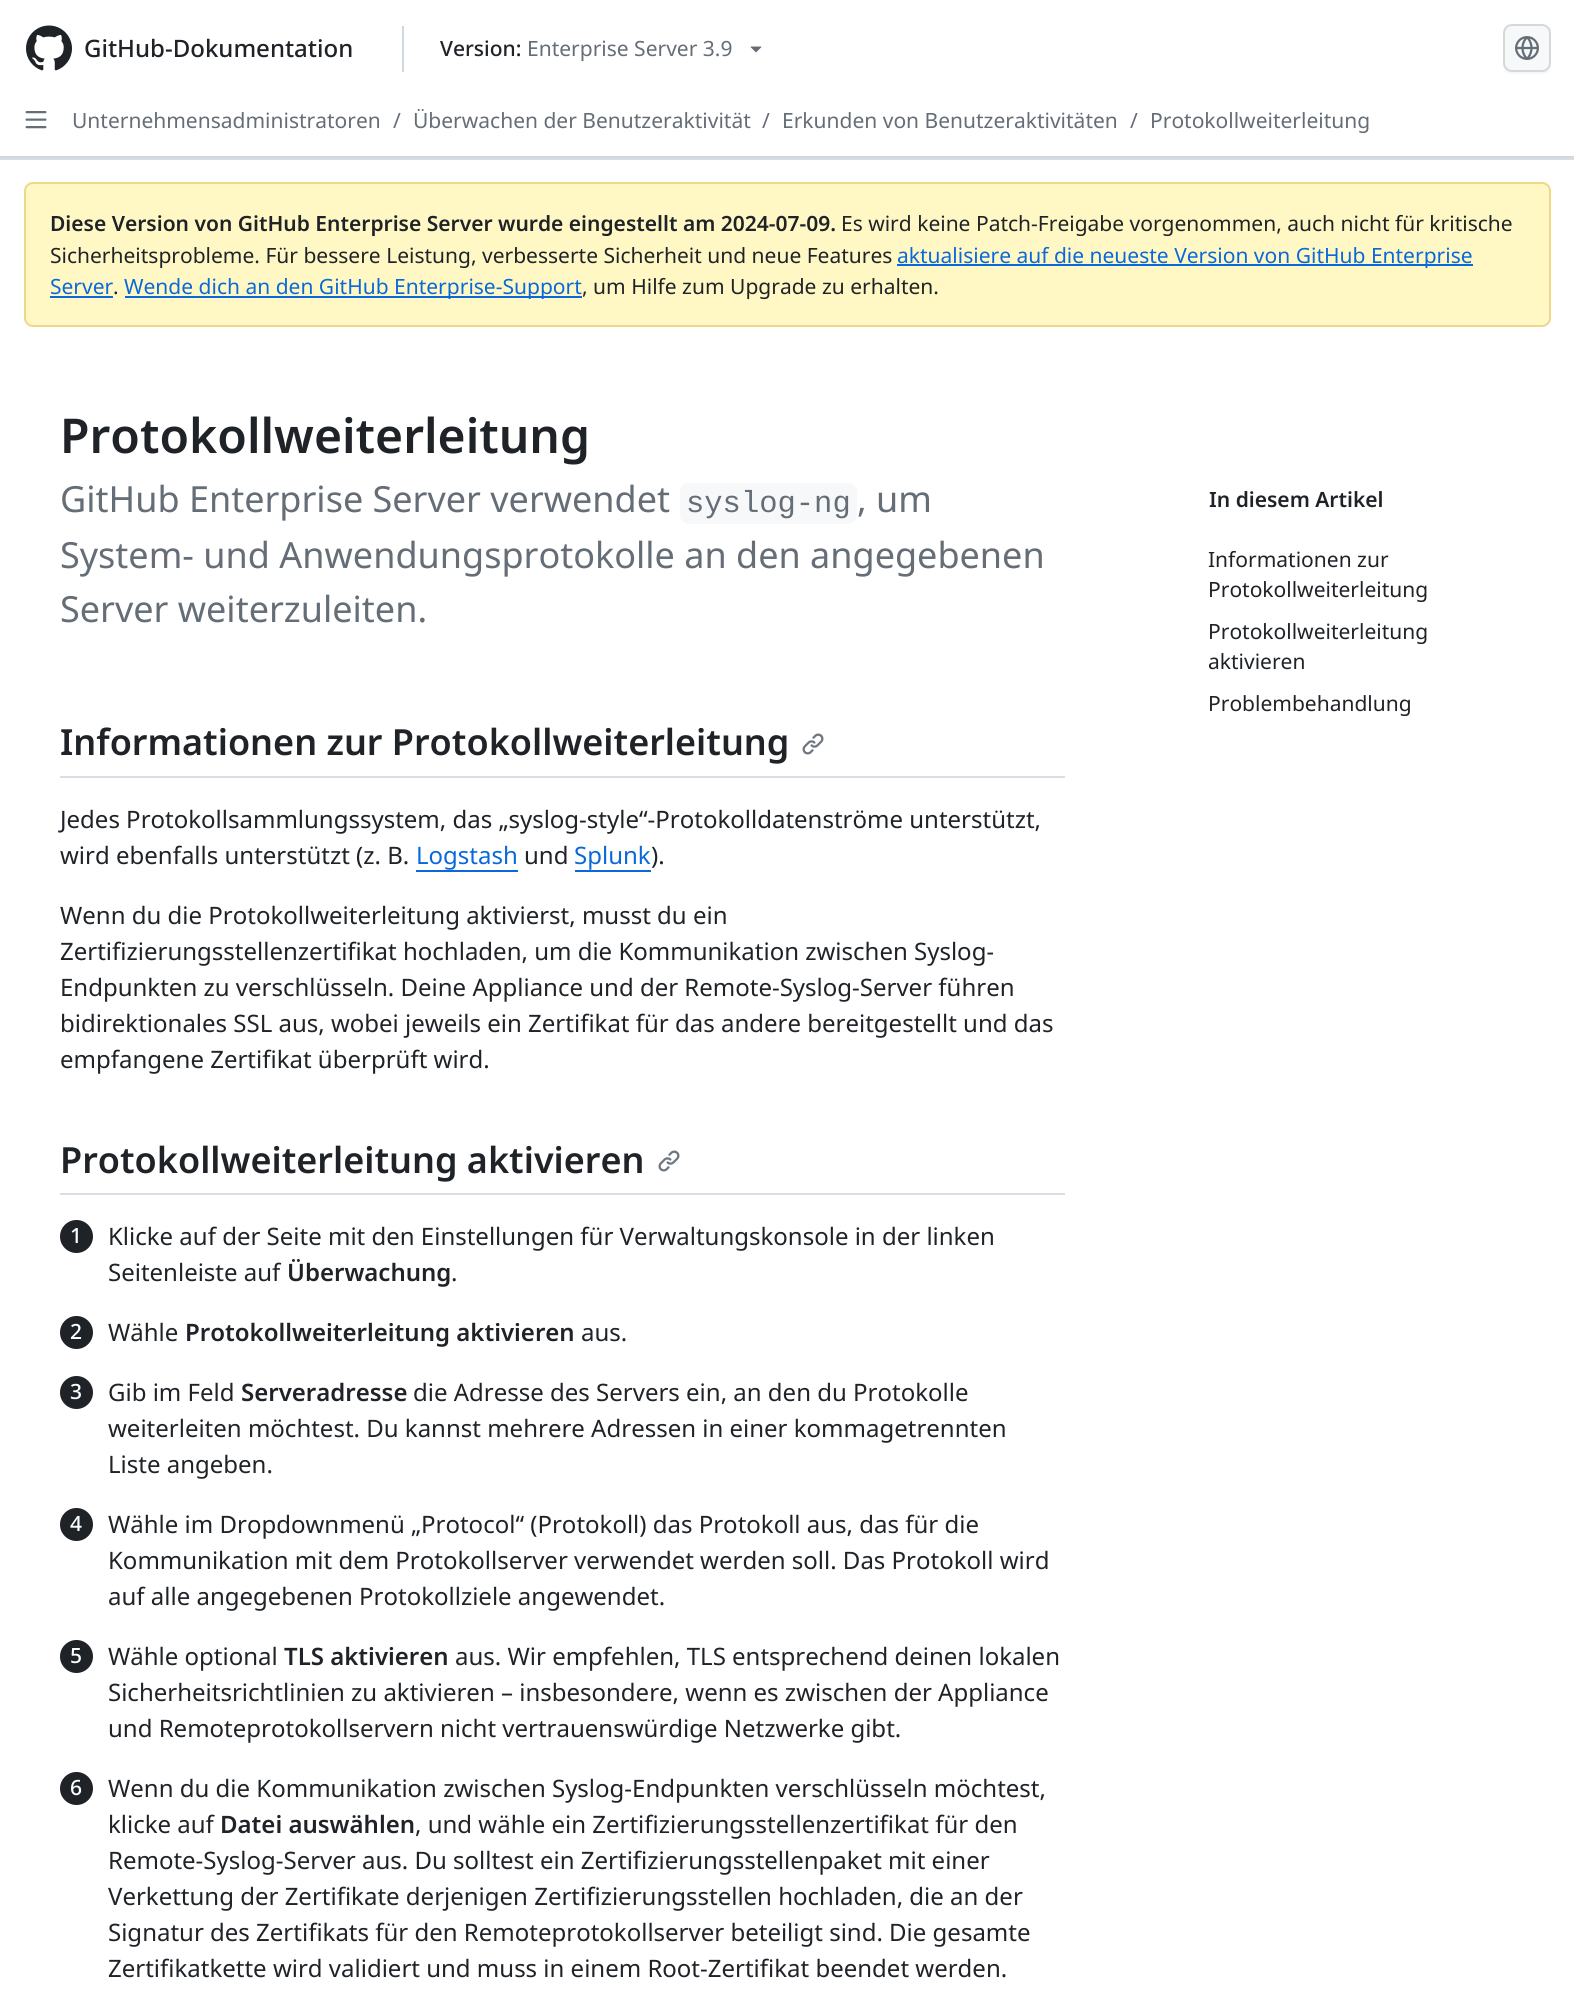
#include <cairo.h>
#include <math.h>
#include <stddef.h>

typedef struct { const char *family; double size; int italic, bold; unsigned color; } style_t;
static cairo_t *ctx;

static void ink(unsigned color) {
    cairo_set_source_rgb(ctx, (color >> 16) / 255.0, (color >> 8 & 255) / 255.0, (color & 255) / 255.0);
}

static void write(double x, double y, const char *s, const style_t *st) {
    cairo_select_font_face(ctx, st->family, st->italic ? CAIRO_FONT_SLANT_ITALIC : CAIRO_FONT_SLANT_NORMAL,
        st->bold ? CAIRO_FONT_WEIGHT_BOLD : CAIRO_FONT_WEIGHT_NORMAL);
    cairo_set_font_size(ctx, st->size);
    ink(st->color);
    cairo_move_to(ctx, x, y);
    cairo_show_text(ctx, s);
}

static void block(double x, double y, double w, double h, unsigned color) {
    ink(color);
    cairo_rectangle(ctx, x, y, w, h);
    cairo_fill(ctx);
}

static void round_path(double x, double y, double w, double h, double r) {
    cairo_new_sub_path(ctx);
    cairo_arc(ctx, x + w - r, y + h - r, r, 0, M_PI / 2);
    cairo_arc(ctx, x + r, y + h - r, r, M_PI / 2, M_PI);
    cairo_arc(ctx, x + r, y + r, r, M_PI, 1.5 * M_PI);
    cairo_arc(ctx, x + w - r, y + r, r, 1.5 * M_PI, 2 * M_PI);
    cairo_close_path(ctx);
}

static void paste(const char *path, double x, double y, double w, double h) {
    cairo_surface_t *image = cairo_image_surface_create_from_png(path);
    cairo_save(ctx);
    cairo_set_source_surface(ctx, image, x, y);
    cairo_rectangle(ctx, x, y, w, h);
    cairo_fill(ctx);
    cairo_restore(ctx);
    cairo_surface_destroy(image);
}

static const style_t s1 = {"Noto Sans Medium", 24, 0, 0, 0x1f2328};
static const style_t s2 = {"Noto Sans Medium", 21, 0, 0, 0x1f2328};
static const style_t s3 = {"Noto Sans", 21, 0, 0, 0x656d76};
static const style_t s4 = {"Noto Sans SemiBold", 21, 0, 0, 0x1f2328};
static const style_t s5 = {"Noto Sans", 21, 0, 0, 0x1f2328};
static const style_t s6 = {"Noto Sans", 21, 0, 0, 0x0969da};
static const style_t s7 = {"Noto Sans SemiBold", 48, 0, 0, 0x1f2328};
static const style_t s8 = {"Noto Sans", 36, 0, 0, 0x656d76};
static const style_t s9 = {"Liberation Mono", 30.5, 0, 0, 0x656d76};
static const style_t s10 = {"Noto Sans SemiBold", 36, 0, 0, 0x1f2328};
static const style_t s11 = {"Noto Sans", 24, 0, 0, 0x1f2328};
static const style_t s12 = {"Noto Sans", 24, 0, 0, 0x0969da};
static const style_t s13 = {"Noto Sans Medium", 21, 0, 0, 0xffffff};
static const style_t s14 = {"Noto Sans SemiBold", 24, 0, 0, 0x1f2328};

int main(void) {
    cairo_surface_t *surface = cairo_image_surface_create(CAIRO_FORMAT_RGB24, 1574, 2001);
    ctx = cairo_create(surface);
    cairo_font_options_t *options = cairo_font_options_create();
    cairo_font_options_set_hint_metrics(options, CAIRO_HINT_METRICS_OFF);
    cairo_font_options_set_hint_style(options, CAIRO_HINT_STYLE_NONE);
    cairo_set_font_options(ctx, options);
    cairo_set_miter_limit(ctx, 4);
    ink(0xffffff);
    cairo_paint(ctx);
    block(0, 158, 1574, 2, 0xd8dee4);
    block(0, 156, 1574, 2, 0xd0d7de);
    paste("pic1.png", 26, 25, 46, 46);
    write(84, 57, "GitHub-Dokumentation", &s1);
    block(402, 26, 2, 46, 0xd0d7de);
    write(440, 56, "Version:", &s2);
    write(527, 56, "Enterprise Server 3.9", &s3);
    paste("pic2.png", 750, 46, 12, 7);
    ink(0xf6f6f6);
    cairo_new_path(ctx);
    cairo_move_to(ctx, 1503, 63);
    cairo_curve_to(ctx, 1503, 73, 1508, 74, 1517, 74);
    cairo_line_to(ctx, 1537, 74);
    cairo_curve_to(ctx, 1546, 74, 1551, 73, 1551, 63);
    cairo_curve_to(ctx, 1551, 68, 1547, 72, 1542, 72);
    cairo_line_to(ctx, 1512, 72);
    cairo_curve_to(ctx, 1507, 72, 1503, 68, 1503, 63);
    cairo_close_path(ctx);
    cairo_fill(ctx);
    ink(0xf6f8fa);
    round_path(1503, 24, 48, 48, 9);
    cairo_fill(ctx);
    round_path(1504, 25, 46, 46, 8);
    cairo_set_source_rgba(ctx, 0.122, 0.137, 0.157, 0.15);
    cairo_stroke(ctx);
    paste("pic3.png", 1515, 36, 24, 24);
    paste("pic4.png", 25, 111, 22, 18);
    write(72, 128, "Unternehmensadministratoren", &s3);
    write(393, 128, "/", &s3);
    write(413, 128, "Überwachen der Benutzeraktivität", &s3);
    write(762, 128, "/", &s3);
    write(782, 128, "Erkunden von Benutzeraktivitäten", &s3);
    write(1130, 128, "/", &s3);
    write(1150, 128, "Protokollweiterleitung", &s3);
    ink(0xfff8c5);
    round_path(24, 182, 1527, 145, 9);
    cairo_fill(ctx);
    round_path(25, 183, 1525, 143, 8);
    cairo_set_source_rgba(ctx, 0.831, 0.655, 0.173, 0.4);
    cairo_stroke(ctx);
    write(50, 231, "Diese Version von GitHub Enterprise Server wurde eingestellt am 2024-07-09.", &s4);
    write(841, 231, "Es wird keine Patch-Freigabe vorgenommen, auch nicht für kritische", &s5);
    write(50, 263, "Sicherheitsprobleme. Für bessere Leistung, verbesserte Sicherheit und neue Features", &s5);
    block(897, 264, 576, 2, 0x0969da);
    write(897, 263, "aktualisiere auf die neueste Version von GitHub Enterprise", &s6);
    write(50, 294, "Server", &s6);
    write(113, 294, ".", &s5);
    block(50, 296, 63, 2, 0x0969da);
    block(125, 296, 457, 2, 0x0969da);
    write(124, 294, "Wende dich an den GitHub Enterprise-Support", &s6);
    write(582, 294, ", um Hilfe zum Upgrade zu erhalten.", &s5);
    write(60, 453, "Protokollweiterleitung", &s7);
    write(60, 512, "GitHub Enterprise Server verwendet", &s8);
    ink(0xf6f8fa);
    round_path(680, 483, 177, 41, 9);
    cairo_fill(ctx);
    write(686, 512, "syslog-ng", &s9);
    write(857, 512, ", um", &s8);
    write(60, 568, "System- und Anwendungsprotokolle an den angegebenen", &s8);
    write(60, 622, "Server weiterzuleiten.", &s8);
    write(1209, 507, "In diesem Artikel", &s4);
    write(1208, 567, "Informationen zur", &s5);
    write(1208, 597, "Protokollweiterleitung", &s5);
    write(1208, 639, "Protokollweiterleitung", &s5);
    write(1208, 669, "aktivieren", &s5);
    write(1208, 711, "Problembehandlung", &s5);
    block(60, 776, 1005, 2, 0xd8dee4);
    write(60, 755, "Informationen zur Protokollweiterleitung", &s10);
    paste("pic5.png", 802, 733, 22, 22);
    write(60, 828, "Jedes Protokollsammlungssystem, das „syslog-style“-Protokolldatenströme unterstützt,", &s11);
    write(60, 864, "wird ebenfalls unterstützt (z. B.", &s11);
    write(416, 864, "Logstash", &s12);
    block(416, 870, 102, 2, 0x0969da);
    write(524, 864, "und", &s11);
    write(574, 864, "Splunk", &s12);
    block(575, 870, 76, 2, 0x0969da);
    write(651, 864, ").", &s11);
    write(60, 924, "Wenn du die Protokollweiterleitung aktivierst, musst du ein", &s11);
    write(60, 960, "Zertifizierungsstellenzertifikat hochladen, um die Kommunikation zwischen Syslog-", &s11);
    write(60, 996, "Endpunkten zu verschlüsseln. Deine Appliance und der Remote-Syslog-Server führen", &s11);
    write(60, 1032, "bidirektionales SSL aus, wobei jeweils ein Zertifikat für das andere bereitgestellt und das", &s11);
    write(60, 1068, "empfangene Zertifikat überprüft wird.", &s11);
    block(60, 1193, 1005, 2, 0xd8dee4);
    write(60, 1173, "Protokollweiterleitung aktivieren", &s10);
    paste("pic5.png", 658, 1150, 22, 22);
    cairo_arc(ctx, 76.5, 1236.5, 16.5, 0, 2 * M_PI);
    cairo_fill(ctx);
    write(70, 1243, "1", &s13);
    write(108, 1245, "Klicke auf der Seite mit den Einstellungen für Verwaltungskonsole in der linken", &s11);
    write(108, 1281, "Seitenleiste auf", &s11);
    write(287, 1281, "Überwachung", &s14);
    write(451, 1281, ".", &s11);
    cairo_new_path(ctx);
    cairo_arc(ctx, 76.5, 1332.5, 16.5, 0, 2 * M_PI);
    cairo_fill(ctx);
    write(70, 1339, "2", &s13);
    write(108, 1341, "Wähle", &s11);
    write(185, 1341, "Protokollweiterleitung aktivieren", &s14);
    write(581, 1341, "aus.", &s11);
    cairo_new_path(ctx);
    cairo_arc(ctx, 76.5, 1392.5, 16.5, 0, 2 * M_PI);
    cairo_fill(ctx);
    write(70, 1399, "3", &s13);
    write(108, 1401, "Gib im Feld", &s11);
    write(241, 1401, "Serveradresse", &s14);
    write(413, 1401, "die Adresse des Servers ein, an den du Protokolle", &s11);
    write(108, 1437, "weiterleiten möchtest. Du kannst mehrere Adressen in einer kommagetrennten", &s11);
    write(108, 1473, "Liste angeben.", &s11);
    cairo_new_path(ctx);
    cairo_arc(ctx, 76.5, 1524.5, 16.5, 0, 2 * M_PI);
    cairo_fill(ctx);
    write(70, 1531, "4", &s13);
    write(108, 1533, "Wähle im Dropdownmenü „Protocol“ (Protokoll) das Protokoll aus, das für die", &s11);
    write(108, 1569, "Kommunikation mit dem Protokollserver verwendet werden soll. Das Protokoll wird", &s11);
    write(108, 1605, "auf alle angegebenen Protokollziele angewendet.", &s11);
    cairo_new_path(ctx);
    cairo_arc(ctx, 76.5, 1656.5, 16.5, 0, 2 * M_PI);
    cairo_fill(ctx);
    write(70, 1663, "5", &s13);
    write(108, 1665, "Wähle optional", &s11);
    write(284, 1665, "TLS aktivieren", &s14);
    write(455, 1665, "aus. Wir empfehlen, TLS entsprechend deinen lokalen", &s11);
    write(108, 1701, "Sicherheitsrichtlinien zu aktivieren – insbesondere, wenn es zwischen der Appliance", &s11);
    write(108, 1737, "und Remoteprotokollservern nicht vertrauenswürdige Netzwerke gibt.", &s11);
    cairo_new_path(ctx);
    cairo_arc(ctx, 76.5, 1788.5, 16.5, 0, 2 * M_PI);
    cairo_fill(ctx);
    write(70, 1795, "6", &s13);
    write(108, 1797, "Wenn du die Kommunikation zwischen Syslog-Endpunkten verschlüsseln möchtest,", &s11);
    write(108, 1833, "klicke auf", &s11);
    write(220, 1833, "Datei auswählen", &s14);
    write(415, 1833, ", und wähle ein Zertifizierungsstellenzertifikat für den", &s11);
    write(108, 1869, "Remote-Syslog-Server aus. Du solltest ein Zertifizierungsstellenpaket mit einer", &s11);
    write(108, 1905, "Verkettung der Zertifikate derjenigen Zertifizierungsstellen hochladen, die an der", &s11);
    write(108, 1941, "Signatur des Zertifikats für den Remoteprotokollserver beteiligt sind. Die gesamte", &s11);
    write(108, 1977, "Zertifikatkette wird validiert und muss in einem Root-Zertifikat beendet werden.", &s11);
    cairo_surface_write_to_png(surface, "screenshot.png");
    cairo_font_options_destroy(options);
    cairo_destroy(ctx);
    cairo_surface_destroy(surface);
    return 0;
}
